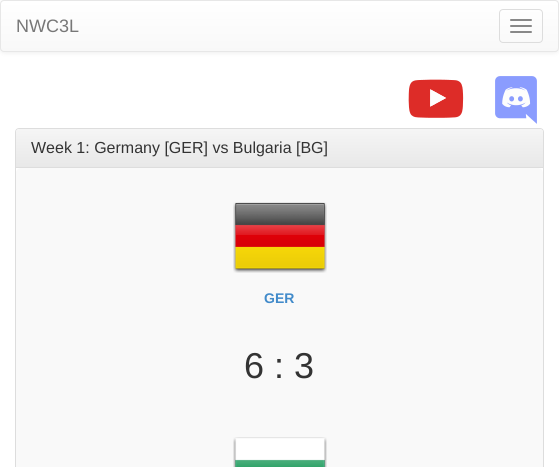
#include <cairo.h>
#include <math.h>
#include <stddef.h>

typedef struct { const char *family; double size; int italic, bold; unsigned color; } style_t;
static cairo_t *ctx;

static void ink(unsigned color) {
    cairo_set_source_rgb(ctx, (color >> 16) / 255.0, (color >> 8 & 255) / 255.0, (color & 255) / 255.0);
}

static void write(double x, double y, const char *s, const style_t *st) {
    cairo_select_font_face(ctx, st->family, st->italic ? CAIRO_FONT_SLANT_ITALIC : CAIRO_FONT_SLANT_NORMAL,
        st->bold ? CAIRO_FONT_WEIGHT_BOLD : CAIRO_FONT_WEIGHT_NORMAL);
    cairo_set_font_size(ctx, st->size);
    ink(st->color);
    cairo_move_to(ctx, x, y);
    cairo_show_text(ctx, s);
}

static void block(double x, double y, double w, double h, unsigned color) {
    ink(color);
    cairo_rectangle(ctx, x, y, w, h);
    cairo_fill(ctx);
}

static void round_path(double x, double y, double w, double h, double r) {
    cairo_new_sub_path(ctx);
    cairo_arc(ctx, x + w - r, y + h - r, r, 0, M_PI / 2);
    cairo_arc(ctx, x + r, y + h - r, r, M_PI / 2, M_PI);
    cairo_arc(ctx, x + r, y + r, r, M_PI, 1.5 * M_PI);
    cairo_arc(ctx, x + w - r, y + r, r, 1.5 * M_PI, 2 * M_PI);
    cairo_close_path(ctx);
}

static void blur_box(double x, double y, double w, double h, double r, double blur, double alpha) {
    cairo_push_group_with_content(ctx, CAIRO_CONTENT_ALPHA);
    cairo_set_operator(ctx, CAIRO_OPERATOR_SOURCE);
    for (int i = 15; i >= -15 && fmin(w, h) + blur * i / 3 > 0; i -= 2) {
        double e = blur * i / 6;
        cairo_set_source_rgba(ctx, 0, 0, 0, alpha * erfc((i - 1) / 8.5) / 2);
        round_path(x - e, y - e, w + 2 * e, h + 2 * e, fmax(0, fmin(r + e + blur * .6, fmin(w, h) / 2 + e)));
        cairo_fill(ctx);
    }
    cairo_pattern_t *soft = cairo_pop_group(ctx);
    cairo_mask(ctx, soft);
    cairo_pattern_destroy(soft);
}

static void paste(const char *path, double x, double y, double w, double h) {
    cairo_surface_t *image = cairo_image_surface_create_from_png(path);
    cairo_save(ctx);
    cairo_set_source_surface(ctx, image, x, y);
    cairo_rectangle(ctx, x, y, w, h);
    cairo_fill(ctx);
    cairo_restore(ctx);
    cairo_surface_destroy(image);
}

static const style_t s1 = {"Liberation Sans", 18, 0, 0, 0x777777};
static const style_t s2 = {"Liberation Sans", 16, 0, 0, 0x333333};
static const style_t s3 = {"Liberation Sans", 14, 0, 1, 0x428bca};
static const style_t s4 = {"Liberation Sans", 36, 0, 0, 0x333333};

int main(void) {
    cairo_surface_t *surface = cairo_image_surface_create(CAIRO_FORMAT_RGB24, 559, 467);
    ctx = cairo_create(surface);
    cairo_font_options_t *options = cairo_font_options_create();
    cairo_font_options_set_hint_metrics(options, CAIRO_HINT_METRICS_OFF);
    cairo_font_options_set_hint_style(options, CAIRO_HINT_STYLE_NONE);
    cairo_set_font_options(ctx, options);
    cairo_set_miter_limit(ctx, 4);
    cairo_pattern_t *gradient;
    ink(0xffffff);
    cairo_paint(ctx);
    ink(0x000000);
    blur_box(0, 1, 559, 52, 4, 2.5, 0.07);
    cairo_save(ctx);
    round_path(0, 0, 559, 52, 4);
    cairo_clip(ctx);
    gradient = cairo_pattern_create_linear(280, 1, 280, 51);
    cairo_pattern_add_color_stop_rgba(gradient, 0, 1, 1, 1, 1);
    cairo_pattern_add_color_stop_rgba(gradient, 1, 0.973, 0.973, 0.973, 1);
    cairo_set_source(ctx, gradient);
    cairo_pattern_destroy(gradient);
    cairo_rectangle(ctx, 0, 1, 559, 50);
    cairo_fill(ctx);
    cairo_restore(ctx);
    round_path(0.5, 0.5, 558, 51, 3.5);
    ink(0xe7e7e7);
    cairo_set_line_width(ctx, 1);
    cairo_stroke(ctx);
    write(16, 32, "NWC3L", &s1);
    round_path(499.5, 9.5, 43, 33, 3.5);
    ink(0xdddddd);
    cairo_stroke(ctx);
    ink(0x888888);
    round_path(510, 19, 22, 2, 1);
    cairo_fill(ctx);
    round_path(510, 25, 22, 2, 1);
    cairo_fill(ctx);
    round_path(510, 31, 22, 2, 1);
    cairo_fill(ctx);
    paste("pic1.png", 408, 79, 56, 39);
    paste("pic2.png", 495, 76, 42, 48);
    round_path(15.5, 128.5, 528, 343, 3.5);
    ink(0xdddddd);
    cairo_stroke(ctx);
    gradient = cairo_pattern_create_linear(280, 129, 280, 167);
    cairo_pattern_add_color_stop_rgba(gradient, 0, 0.961, 0.961, 0.961, 1);
    cairo_pattern_add_color_stop_rgba(gradient, 1, 0.91, 0.91, 0.91, 1);
    cairo_set_source(ctx, gradient);
    cairo_pattern_destroy(gradient);
    cairo_new_path(ctx);
    cairo_move_to(ctx, 19, 129);
    cairo_line_to(ctx, 540, 129);
    cairo_curve_to(ctx, 541.5, 129, 543, 130.5, 543, 132);
    cairo_line_to(ctx, 543, 167);
    cairo_line_to(ctx, 16, 167);
    cairo_line_to(ctx, 16, 132);
    cairo_curve_to(ctx, 16, 130.5, 17.5, 129, 19, 129);
    cairo_close_path(ctx);
    cairo_fill(ctx);
    block(16, 167, 527, 1, 0xdddddd);
    write(31, 153, "Week 1: Germany [GER] vs Bulgaria [BG]", &s2);
    ink(0xf9f9f9);
    round_path(16, 168, 527, 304, 5);
    cairo_fill(ctx);
    paste("pic3.png", 233, 202, 94, 71);
    write(264, 303, "GER", &s3);
    write(244, 378, "6 : 3", &s4);
    paste("pic4.png", 233, 437, 94, 30);
    cairo_surface_write_to_png(surface, "screenshot.png");
    cairo_font_options_destroy(options);
    cairo_destroy(ctx);
    cairo_surface_destroy(surface);
    return 0;
}
